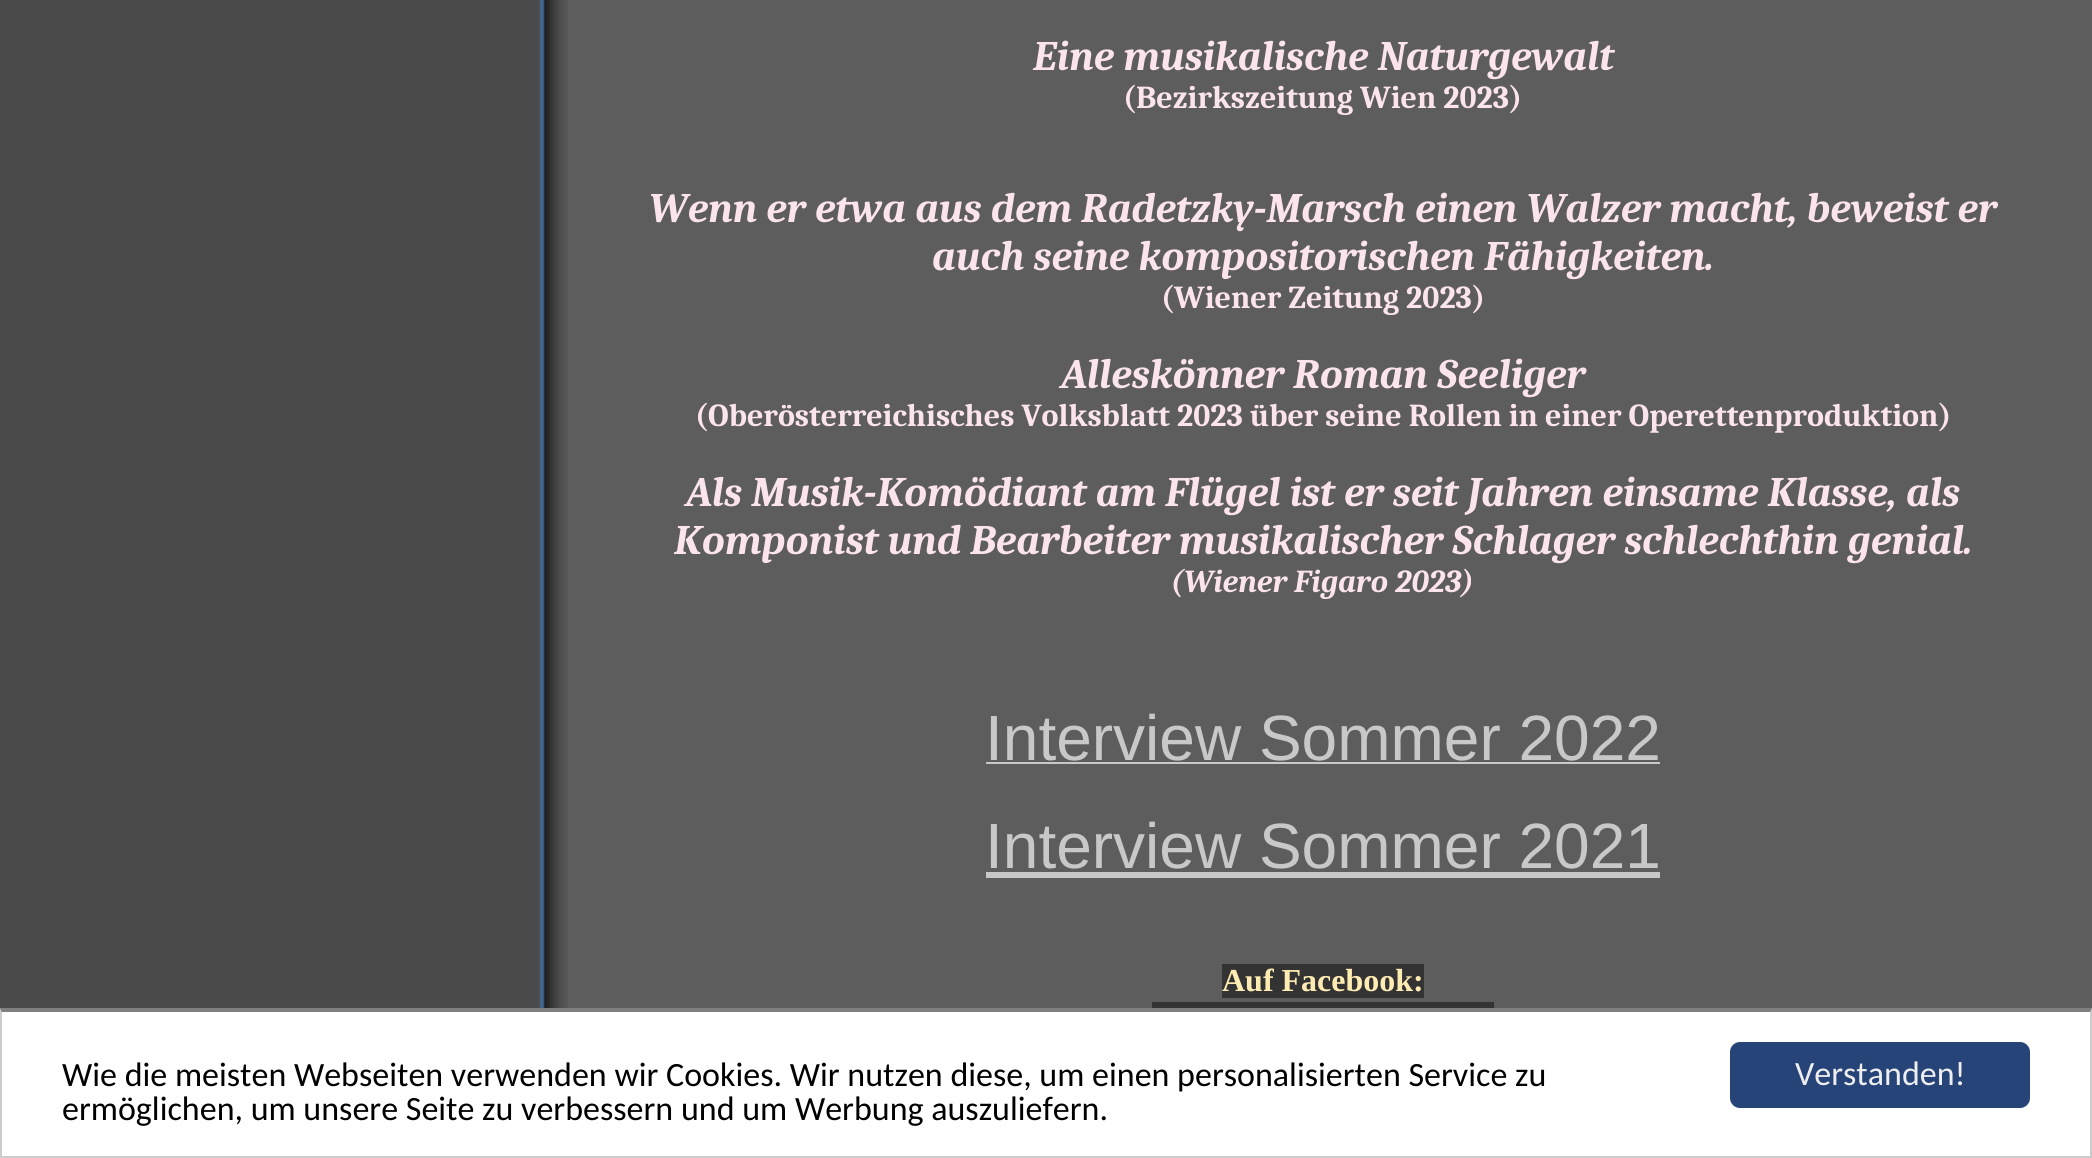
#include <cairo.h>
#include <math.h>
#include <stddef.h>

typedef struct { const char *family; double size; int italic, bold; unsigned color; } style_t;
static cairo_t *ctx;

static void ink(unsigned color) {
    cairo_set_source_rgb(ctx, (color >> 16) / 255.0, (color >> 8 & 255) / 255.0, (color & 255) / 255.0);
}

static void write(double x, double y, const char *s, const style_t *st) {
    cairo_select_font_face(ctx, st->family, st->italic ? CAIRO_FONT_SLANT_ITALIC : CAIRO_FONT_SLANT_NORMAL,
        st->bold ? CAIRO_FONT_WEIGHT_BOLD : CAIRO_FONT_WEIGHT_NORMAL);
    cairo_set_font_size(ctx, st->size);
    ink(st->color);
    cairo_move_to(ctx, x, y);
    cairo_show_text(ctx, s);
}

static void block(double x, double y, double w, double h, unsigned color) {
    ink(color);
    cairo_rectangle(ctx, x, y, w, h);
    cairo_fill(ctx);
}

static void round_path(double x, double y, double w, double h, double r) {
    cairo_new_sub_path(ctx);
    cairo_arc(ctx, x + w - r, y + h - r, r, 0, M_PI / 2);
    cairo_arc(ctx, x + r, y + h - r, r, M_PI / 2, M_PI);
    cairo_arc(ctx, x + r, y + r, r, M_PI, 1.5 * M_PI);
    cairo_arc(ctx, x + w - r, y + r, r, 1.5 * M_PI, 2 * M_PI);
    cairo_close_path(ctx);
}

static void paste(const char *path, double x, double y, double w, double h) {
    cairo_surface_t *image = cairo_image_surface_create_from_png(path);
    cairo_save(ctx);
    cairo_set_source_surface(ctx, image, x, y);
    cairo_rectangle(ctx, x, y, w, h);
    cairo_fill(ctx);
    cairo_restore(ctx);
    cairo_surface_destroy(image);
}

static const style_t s1 = {"Caladea", 42, 1, 1, 0xfce4ec};
static const style_t s2 = {"Caladea", 32, 0, 1, 0xfce4ec};
static const style_t s3 = {"Caladea", 32, 1, 1, 0xfce4ec};
static const style_t s4 = {"Liberation Sans", 64, 0, 0, 0xc8c8c8};
static const style_t s5 = {"Liberation Serif", 32, 0, 1, 0xffecb3};
static const style_t s6 = {"Carlito", 34, 0, 0, 0x000000};
static const style_t s7 = {"Carlito", 34, 0, 0, 0xeeeeee};

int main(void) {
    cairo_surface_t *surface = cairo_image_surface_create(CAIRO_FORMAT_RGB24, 2092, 1158);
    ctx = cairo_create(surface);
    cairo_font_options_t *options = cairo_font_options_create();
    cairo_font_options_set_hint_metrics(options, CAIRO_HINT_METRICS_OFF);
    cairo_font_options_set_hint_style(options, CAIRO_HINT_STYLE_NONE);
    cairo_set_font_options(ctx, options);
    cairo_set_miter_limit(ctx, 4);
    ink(0x5d5d5d);
    cairo_paint(ctx);
    paste("pic1.png", 0, 0, 568, 1012);
    write(1033, 70, "Eine musikalische Naturgewalt", &s1);
    write(1123, 108, "(Bezirkszeitung Wien 2023)", &s2);
    write(649, 222, "Wenn er etwa aus dem Radetzky-Marsch einen Walzer macht, beweist er", &s1);
    write(932, 270, "auch seine kompositorischen Fähigkeiten.", &s1);
    write(1161, 308, "(Wiener Zeitung 2023)", &s2);
    write(1061, 388, "Alleskönner Roman Seeliger", &s1);
    write(695, 426, "(Oberösterreichisches Volksblatt 2023 über seine Rollen in einer Operettenproduktion)", &s2);
    write(686, 506, "Als Musik-Komödiant am Flügel ist er seit Jahren einsame Klasse, als", &s1);
    write(674, 554, "Komponist und Bearbeiter musikalischer Schlager schlechthin genial.", &s1);
    write(1171, 592, "(Wiener Figaro 2023)", &s3);
    write(985, 760, "Interview Sommer 2022", &s4);
    block(986, 762, 674, 2, 0xc8c8c8);
    write(985, 868, "Interview Sommer 2021", &s4);
    block(986, 872, 674, 6, 0xc8c8c8);
    block(1222, 964, 202, 34, 0x333333);
    write(1222, 991, "Auf Facebook:", &s5);
    block(1152, 1002, 342, 6, 0x333333);
    block(2, 1012, 2088, 144, 0xffffff);
    ink(0x808080);
    cairo_new_path(ctx);
    cairo_move_to(ctx, 0, 1008);
    cairo_line_to(ctx, 2092, 1008);
    cairo_line_to(ctx, 2090, 1012);
    cairo_line_to(ctx, 2, 1012);
    cairo_close_path(ctx);
    cairo_fill(ctx);
    ink(0xcccccc);
    cairo_new_path(ctx);
    cairo_move_to(ctx, 2092, 1008);
    cairo_line_to(ctx, 2092, 1158);
    cairo_line_to(ctx, 2090, 1156);
    cairo_line_to(ctx, 2090, 1012);
    cairo_close_path(ctx);
    cairo_fill(ctx);
    block(0, 1156, 2092, 2, 0xcccccc);
    cairo_new_path(ctx);
    cairo_move_to(ctx, 0, 1158);
    cairo_line_to(ctx, 0, 1008);
    cairo_line_to(ctx, 2, 1012);
    cairo_line_to(ctx, 2, 1156);
    cairo_close_path(ctx);
    cairo_fill(ctx);
    write(62, 1086, "Wie die meisten Webseiten verwenden wir Cookies. Wir nutzen diese, um einen personalisierten Service zu", &s6);
    write(62, 1120, "ermöglichen, um unsere Seite zu verbessern und um Werbung auszuliefern.", &s6);
    ink(0x274479);
    round_path(1730, 1042, 300, 66, 10);
    cairo_fill(ctx);
    write(1795, 1085, "Verstanden!", &s7);
    cairo_surface_write_to_png(surface, "screenshot.png");
    cairo_font_options_destroy(options);
    cairo_destroy(ctx);
    cairo_surface_destroy(surface);
    return 0;
}
